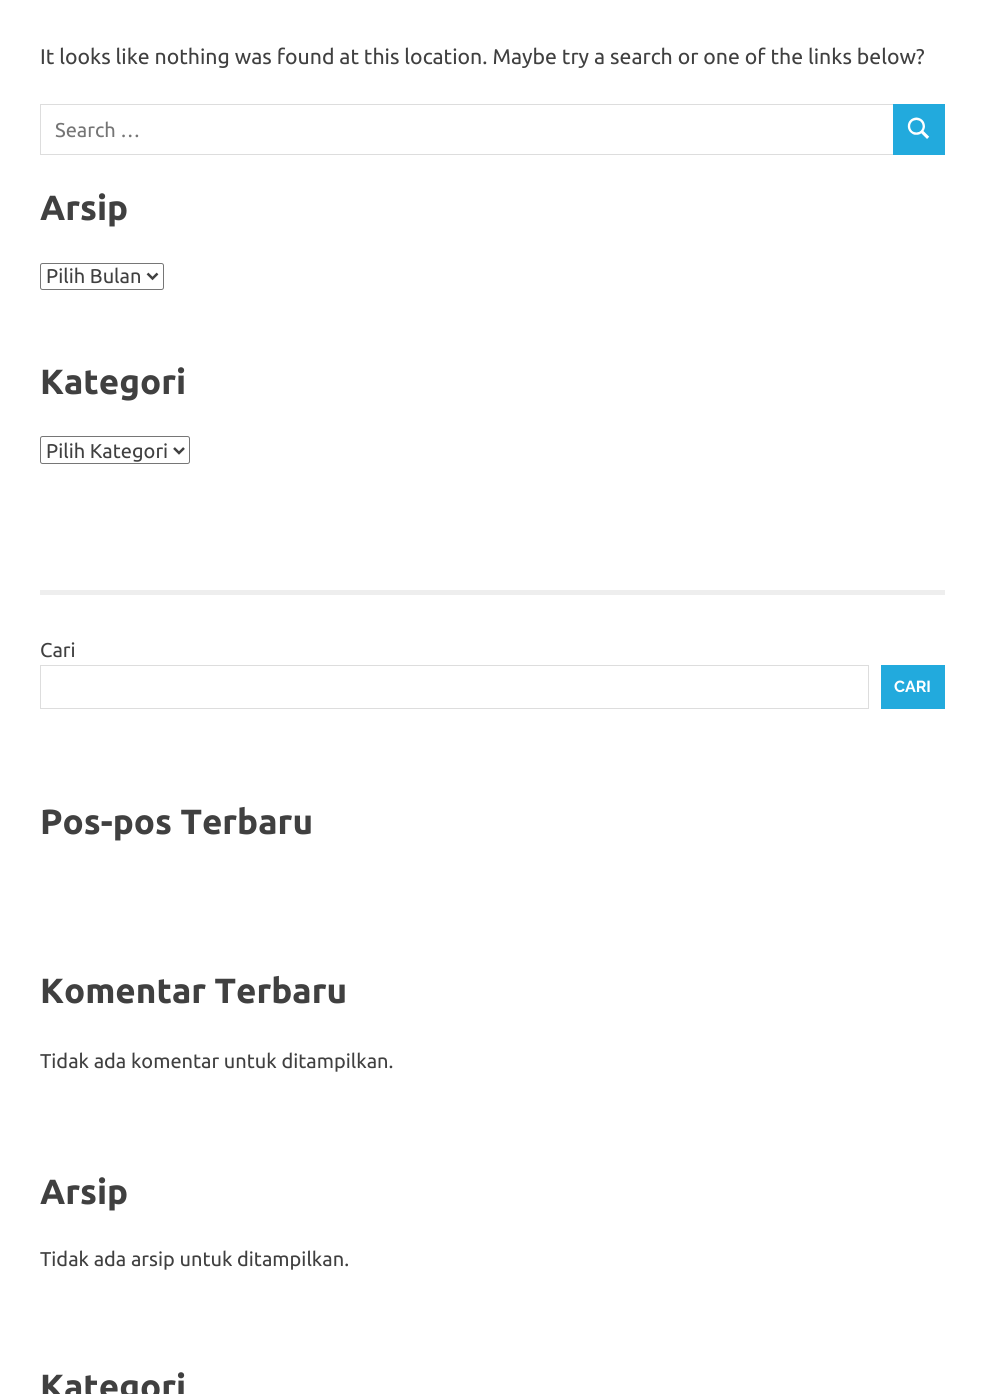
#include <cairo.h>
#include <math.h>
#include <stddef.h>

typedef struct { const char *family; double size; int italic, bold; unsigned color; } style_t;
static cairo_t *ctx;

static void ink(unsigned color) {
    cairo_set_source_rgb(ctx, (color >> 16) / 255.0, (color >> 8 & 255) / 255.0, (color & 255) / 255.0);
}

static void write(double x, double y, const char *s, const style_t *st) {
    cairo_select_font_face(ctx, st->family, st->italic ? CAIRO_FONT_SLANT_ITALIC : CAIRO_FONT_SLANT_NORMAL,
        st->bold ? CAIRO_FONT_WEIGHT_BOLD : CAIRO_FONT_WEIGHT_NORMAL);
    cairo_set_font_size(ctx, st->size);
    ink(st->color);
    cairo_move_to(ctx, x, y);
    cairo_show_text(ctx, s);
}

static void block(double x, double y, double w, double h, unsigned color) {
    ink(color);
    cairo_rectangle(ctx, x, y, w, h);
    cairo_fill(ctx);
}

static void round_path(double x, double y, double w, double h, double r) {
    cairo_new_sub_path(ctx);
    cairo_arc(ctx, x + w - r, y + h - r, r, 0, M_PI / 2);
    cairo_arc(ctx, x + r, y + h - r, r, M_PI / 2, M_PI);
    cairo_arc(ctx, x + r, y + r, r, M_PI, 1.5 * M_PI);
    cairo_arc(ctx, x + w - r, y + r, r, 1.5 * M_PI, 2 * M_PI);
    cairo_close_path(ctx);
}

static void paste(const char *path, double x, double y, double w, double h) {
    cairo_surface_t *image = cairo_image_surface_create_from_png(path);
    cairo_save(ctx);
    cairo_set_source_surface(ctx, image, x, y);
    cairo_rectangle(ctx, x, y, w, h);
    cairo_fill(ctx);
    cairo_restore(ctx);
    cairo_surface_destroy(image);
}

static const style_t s1 = {"Ubuntu", 21.25, 0, 0, 0x404040};
static const style_t s2 = {"Ubuntu", 20, 0, 0, 0x757575};
static const style_t s3 = {"Ubuntu", 35, 0, 1, 0x404040};
static const style_t s4 = {"Ubuntu", 20, 0, 0, 0x404040};
static const style_t s5 = {"Raleway", 16, 0, 1, 0xffffff};

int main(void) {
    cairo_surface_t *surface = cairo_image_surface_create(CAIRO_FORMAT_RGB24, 984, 1394);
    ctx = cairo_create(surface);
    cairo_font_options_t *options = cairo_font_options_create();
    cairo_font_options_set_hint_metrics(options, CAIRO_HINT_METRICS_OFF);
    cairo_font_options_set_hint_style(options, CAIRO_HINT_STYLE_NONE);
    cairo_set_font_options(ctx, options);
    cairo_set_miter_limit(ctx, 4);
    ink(0xffffff);
    cairo_paint(ctx);
    write(40, 64, "It looks like nothing was found at this location. Maybe try a search or one of the links below?", &s1);
    cairo_rectangle(ctx, 40.5, 104.5, 853, 50);
    ink(0xdddddd);
    cairo_set_line_width(ctx, 1);
    cairo_stroke(ctx);
    write(55, 137, "Search …", &s2);
    block(893, 104, 52, 51, 0x22aadd);
    paste("pic1.png", 907, 117, 23, 22);
    write(40, 220, "Arsip", &s3);
    round_path(40.5, 263.5, 123, 26, 2);
    ink(0x767676);
    cairo_stroke(ctx);
    cairo_new_path(ctx);
    cairo_move_to(ctx, 147.5, 273.5);
    cairo_line_to(ctx, 152.5, 278.5);
    cairo_line_to(ctx, 157.5, 273.5);
    ink(0x404040);
    cairo_set_line_width(ctx, 2.5);
    cairo_stroke(ctx);
    write(46, 283, "Pilih Bulan", &s4);
    write(40, 394, "Kategori", &s3);
    round_path(40.5, 436.5, 149, 27, 2);
    ink(0x767676);
    cairo_set_line_width(ctx, 1);
    cairo_stroke(ctx);
    cairo_new_path(ctx);
    cairo_move_to(ctx, 174, 448);
    cairo_line_to(ctx, 179, 453);
    cairo_line_to(ctx, 184, 448);
    ink(0x404040);
    cairo_set_line_width(ctx, 2.5);
    cairo_stroke(ctx);
    write(46, 458, "Pilih Kategori", &s4);
    block(40, 590, 905, 5, 0xeeeeee);
    write(40, 657, "Cari", &s4);
    cairo_rectangle(ctx, 40.5, 665.5, 828, 43);
    ink(0xdddddd);
    cairo_set_line_width(ctx, 1);
    cairo_stroke(ctx);
    block(881, 665, 64, 44, 0x22aadd);
    write(894, 692, "CARI", &s5);
    write(40, 834, "Pos-pos Terbaru", &s3);
    write(40, 1003, "Komentar Terbaru", &s3);
    write(40, 1068, "Tidak ada komentar untuk ditampilkan.", &s4);
    write(40, 1204, "Arsip", &s3);
    write(40, 1266, "Tidak ada arsip untuk ditampilkan.", &s4);
    write(40, 1399, "Kategori", &s3);
    cairo_surface_write_to_png(surface, "screenshot.png");
    cairo_font_options_destroy(options);
    cairo_destroy(ctx);
    cairo_surface_destroy(surface);
    return 0;
}
